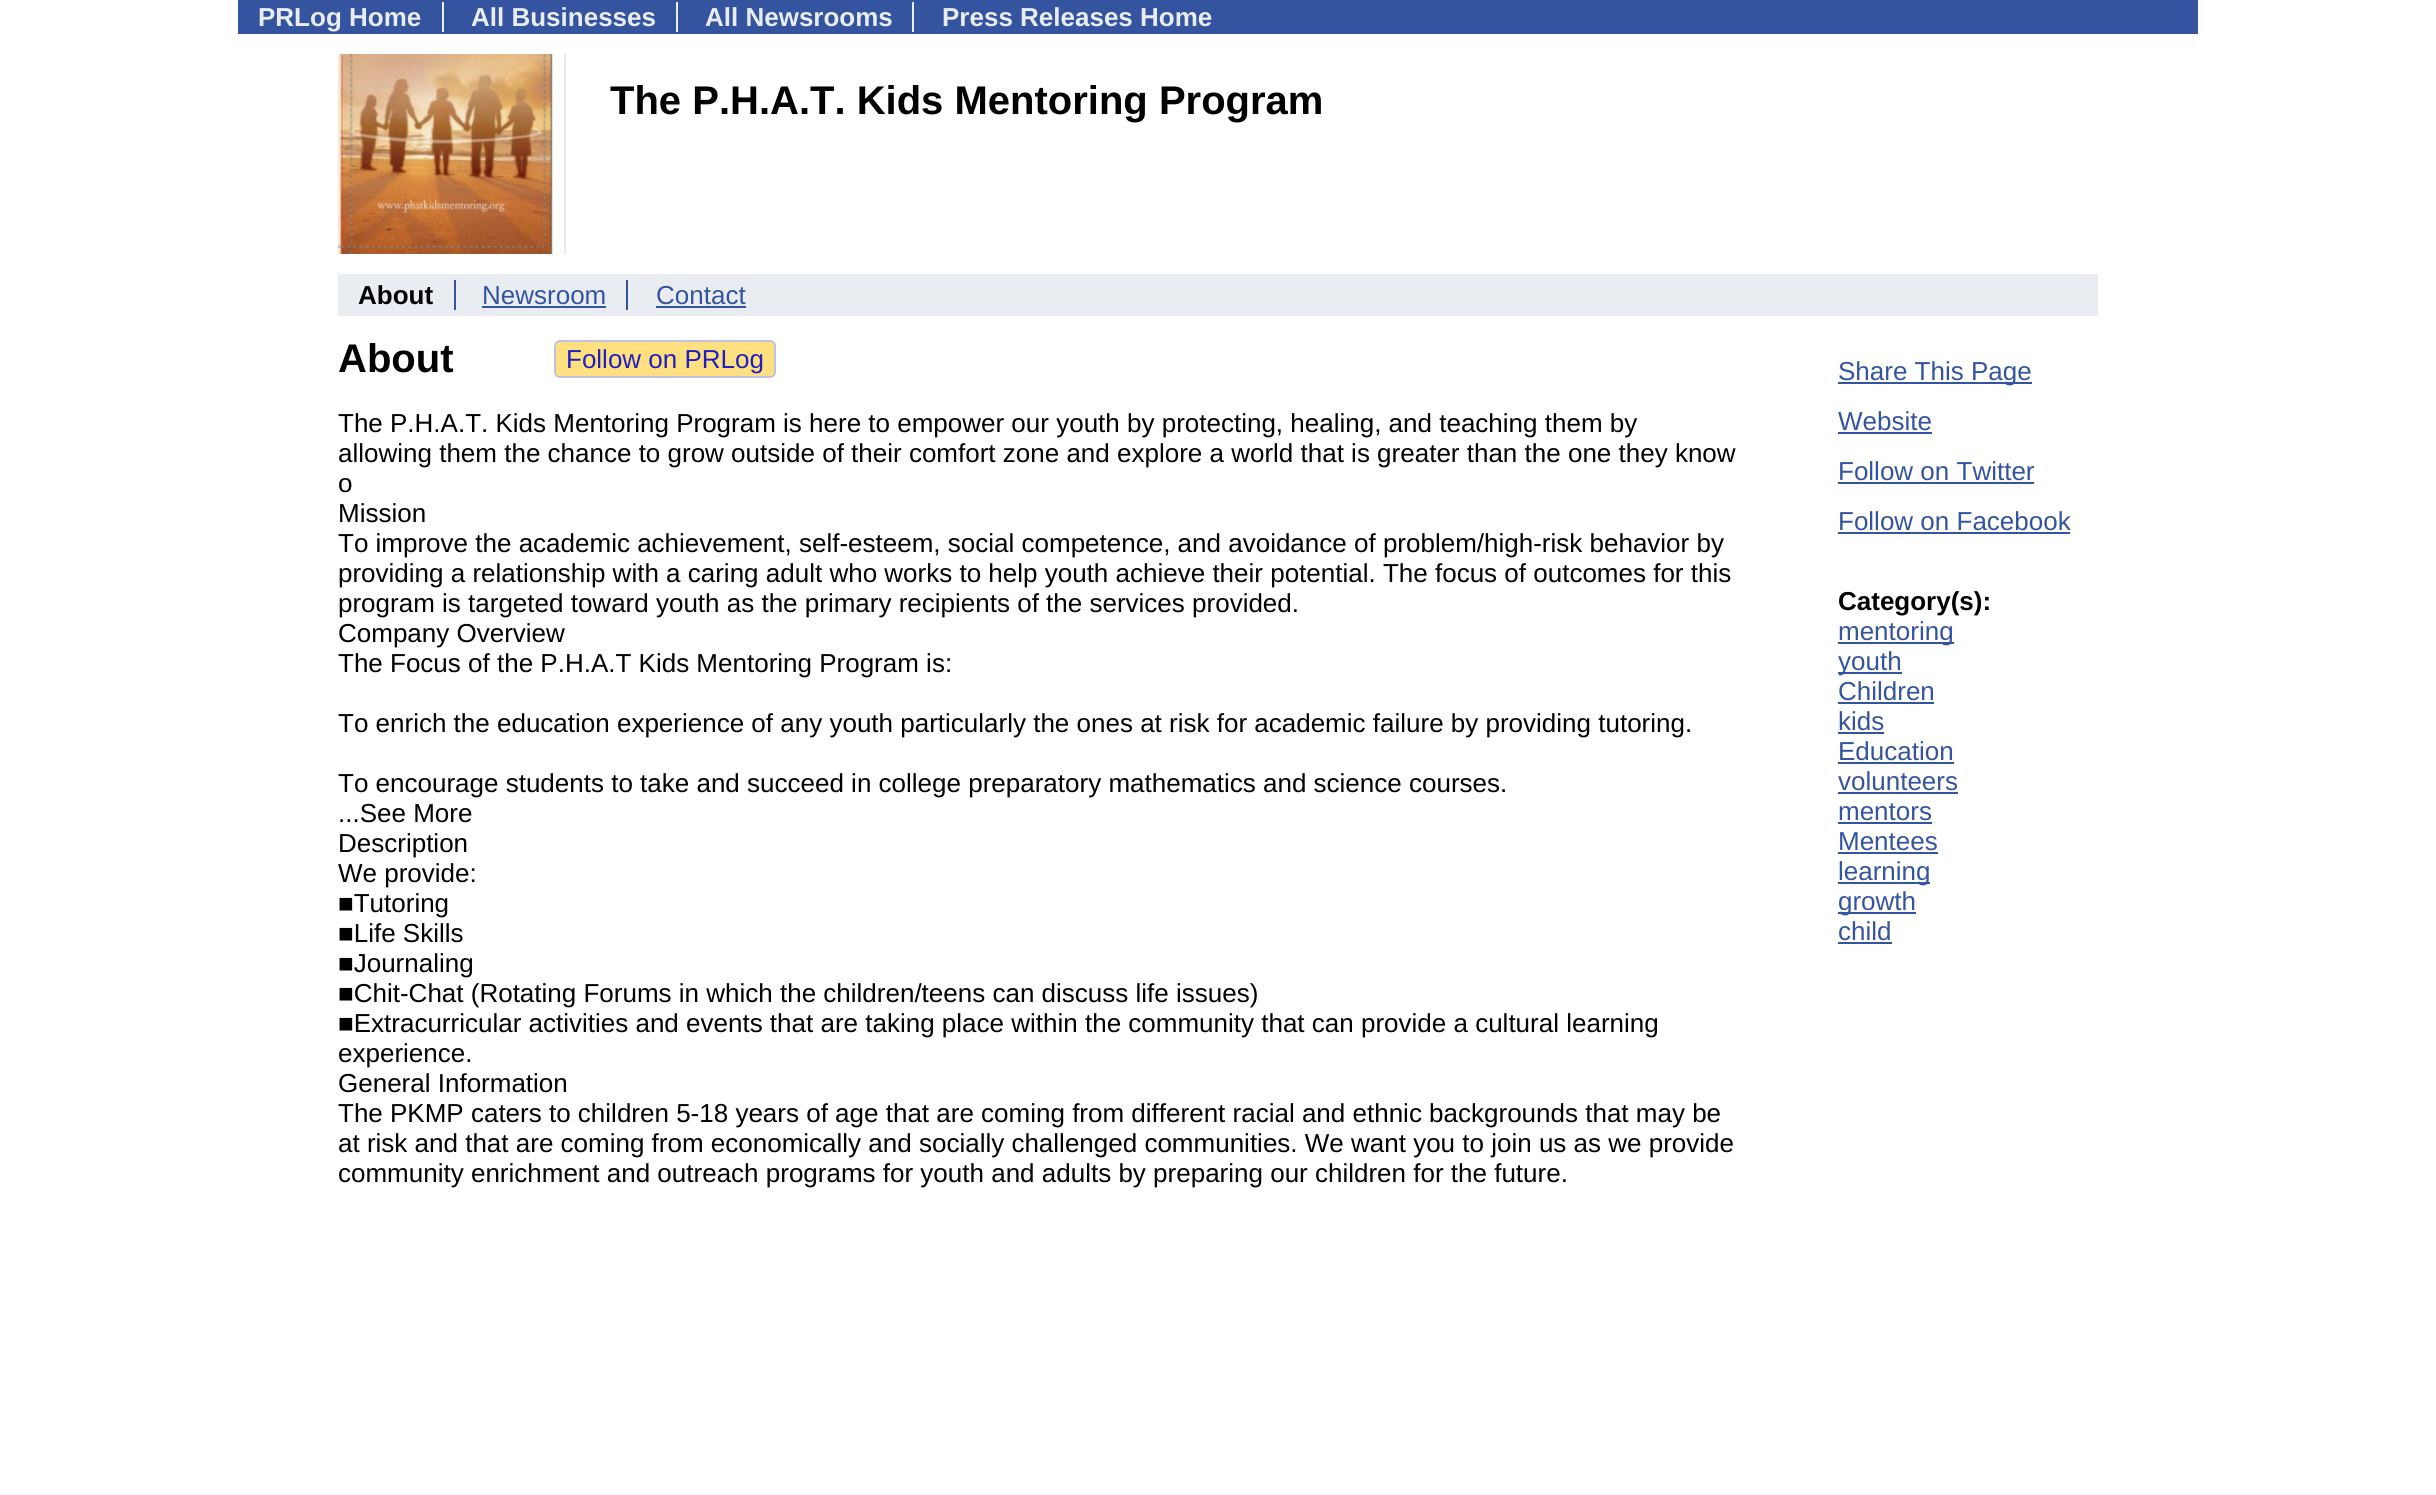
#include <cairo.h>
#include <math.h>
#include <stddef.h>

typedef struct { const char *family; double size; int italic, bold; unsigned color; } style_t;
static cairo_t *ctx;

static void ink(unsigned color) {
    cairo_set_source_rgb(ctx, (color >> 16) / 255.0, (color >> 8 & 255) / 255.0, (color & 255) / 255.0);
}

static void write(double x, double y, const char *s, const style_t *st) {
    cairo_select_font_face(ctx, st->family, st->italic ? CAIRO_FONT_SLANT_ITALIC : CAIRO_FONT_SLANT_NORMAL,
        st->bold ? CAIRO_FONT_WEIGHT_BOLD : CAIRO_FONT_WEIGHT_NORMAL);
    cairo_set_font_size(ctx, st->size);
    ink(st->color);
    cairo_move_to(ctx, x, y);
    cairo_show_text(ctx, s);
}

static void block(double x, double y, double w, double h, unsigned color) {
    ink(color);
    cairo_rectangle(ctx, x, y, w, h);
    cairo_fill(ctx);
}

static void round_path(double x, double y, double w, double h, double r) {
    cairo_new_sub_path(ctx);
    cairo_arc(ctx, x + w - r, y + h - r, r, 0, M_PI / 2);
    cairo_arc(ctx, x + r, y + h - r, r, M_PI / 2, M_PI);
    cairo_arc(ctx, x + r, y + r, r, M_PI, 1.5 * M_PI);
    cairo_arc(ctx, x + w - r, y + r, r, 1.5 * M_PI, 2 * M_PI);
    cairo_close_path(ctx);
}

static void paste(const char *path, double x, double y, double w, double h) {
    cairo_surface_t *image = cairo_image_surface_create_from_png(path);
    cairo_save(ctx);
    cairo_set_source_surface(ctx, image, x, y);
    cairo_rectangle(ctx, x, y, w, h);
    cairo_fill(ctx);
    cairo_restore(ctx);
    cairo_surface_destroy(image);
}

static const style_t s1 = {"Liberation Sans", 26, 0, 1, 0xe9edf2};
static const style_t s2 = {"Liberation Sans", 40, 0, 1, 0x000000};
static const style_t s3 = {"Liberation Sans", 26, 0, 1, 0x000000};
static const style_t s4 = {"Liberation Sans", 26, 0, 0, 0x3454a0};
static const style_t s5 = {"Liberation Sans", 26, 0, 0, 0x2020c0};
static const style_t s6 = {"Liberation Sans", 26, 0, 0, 0x000000};

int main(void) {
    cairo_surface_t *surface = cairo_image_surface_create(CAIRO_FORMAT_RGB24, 2436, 1495);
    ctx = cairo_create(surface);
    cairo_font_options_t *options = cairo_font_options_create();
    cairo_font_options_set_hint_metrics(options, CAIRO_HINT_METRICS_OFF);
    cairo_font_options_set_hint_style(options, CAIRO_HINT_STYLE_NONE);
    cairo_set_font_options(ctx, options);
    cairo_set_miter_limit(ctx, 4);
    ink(0xffffff);
    cairo_paint(ctx);
    block(238, 0, 1960, 34, 0x3454a0);
    block(442, 2, 2, 30, 0xe9edf2);
    write(258, 26, "PRLog Home", &s1);
    block(676, 2, 2, 30, 0xe9edf2);
    write(471, 26, "All Businesses", &s1);
    block(912, 2, 2, 30, 0xe9edf2);
    write(705, 26, "All Newsrooms", &s1);
    write(942, 26, "Press Releases Home", &s1);
    paste("pic1.png", 338, 54, 228, 200);
    write(610, 114, "The P.H.A.T. Kids Mentoring Program", &s2);
    block(338, 274, 1760, 42, 0xe9edf2);
    block(454, 280, 2, 30, 0x3454a0);
    write(358, 304, "About", &s3);
    block(626, 280, 2, 30, 0x3454a0);
    write(482, 304, "Newsroom", &s4);
    block(482, 306, 124, 2, 0x3454a0);
    write(656, 304, "Contact", &s4);
    block(656, 306, 90, 2, 0x3454a0);
    write(338, 372, "About", &s2);
    ink(0xffe080);
    round_path(555, 341, 220, 36, 5);
    cairo_fill_preserve(ctx);
    ink(0xc0c0e0);
    cairo_stroke(ctx);
    write(566, 368, "Follow on PRLog", &s5);
    write(338, 432, "The P.H.A.T. Kids Mentoring Program is here to empower our youth by protecting, healing, and teaching them by", &s6);
    write(338, 462, "allowing them the chance to grow outside of their comfort zone and explore a world that is greater than the one they know", &s6);
    write(338, 492, "o", &s6);
    write(338, 522, "Mission", &s6);
    write(338, 552, "To improve the academic achievement, self-esteem, social competence, and avoidance of problem/high-risk behavior by", &s6);
    write(338, 582, "providing a relationship with a caring adult who works to help youth achieve their potential. The focus of outcomes for this", &s6);
    write(338, 612, "program is targeted toward youth as the primary recipients of the services provided.", &s6);
    write(338, 642, "Company Overview", &s6);
    write(338, 672, "The Focus of the P.H.A.T Kids Mentoring Program is:", &s6);
    write(338, 732, "To enrich the education experience of any youth particularly the ones at risk for academic failure by providing tutoring.", &s6);
    write(338, 792, "To encourage students to take and succeed in college preparatory mathematics and science courses.", &s6);
    write(338, 822, "...See More", &s6);
    write(338, 852, "Description", &s6);
    write(338, 882, "We provide:", &s6);
    write(338, 912, "■Tutoring", &s6);
    write(338, 942, "■Life Skills", &s6);
    write(338, 972, "■Journaling", &s6);
    write(338, 1002, "■Chit-Chat (Rotating Forums in which the children/teens can discuss life issues)", &s6);
    write(338, 1032, "■Extracurricular activities and events that are taking place within the community that can provide a cultural learning", &s6);
    write(338, 1062, "experience.", &s6);
    write(338, 1092, "General Information", &s6);
    write(338, 1122, "The PKMP caters to children 5-18 years of age that are coming from different racial and ethnic backgrounds that may be", &s6);
    write(338, 1152, "at risk and that are coming from economically and socially challenged communities. We want you to join us as we provide", &s6);
    write(338, 1182, "community enrichment and outreach programs for youth and adults by preparing our children for the future.", &s6);
    block(1838, 382, 194, 2, 0x3454a0);
    write(1838, 380, "Share This Page", &s4);
    write(1838, 430, "Website", &s4);
    block(1838, 432, 94, 2, 0x3454a0);
    write(1838, 480, "Follow on Twitter", &s4);
    block(1838, 482, 196, 2, 0x3454a0);
    write(1838, 530, "Follow on Facebook", &s4);
    block(1838, 532, 232, 2, 0x3454a0);
    write(1838, 610, "Category(s):", &s3);
    block(1838, 642, 116, 2, 0x3454a0);
    write(1838, 640, "mentoring", &s4);
    block(1838, 672, 64, 2, 0x3454a0);
    write(1838, 670, "youth", &s4);
    write(1838, 700, "Children", &s4);
    block(1838, 702, 96, 2, 0x3454a0);
    write(1838, 730, "kids", &s4);
    block(1838, 732, 46, 2, 0x3454a0);
    write(1838, 760, "Education", &s4);
    block(1838, 762, 116, 2, 0x3454a0);
    write(1838, 790, "volunteers", &s4);
    block(1838, 792, 120, 2, 0x3454a0);
    write(1838, 820, "mentors", &s4);
    block(1838, 822, 94, 2, 0x3454a0);
    write(1838, 850, "Mentees", &s4);
    block(1838, 852, 100, 2, 0x3454a0);
    block(1838, 882, 92, 2, 0x3454a0);
    write(1838, 880, "learning", &s4);
    block(1838, 912, 78, 2, 0x3454a0);
    write(1838, 910, "growth", &s4);
    write(1838, 940, "child", &s4);
    block(1838, 942, 54, 2, 0x3454a0);
    cairo_surface_write_to_png(surface, "screenshot.png");
    cairo_font_options_destroy(options);
    cairo_destroy(ctx);
    cairo_surface_destroy(surface);
    return 0;
}
